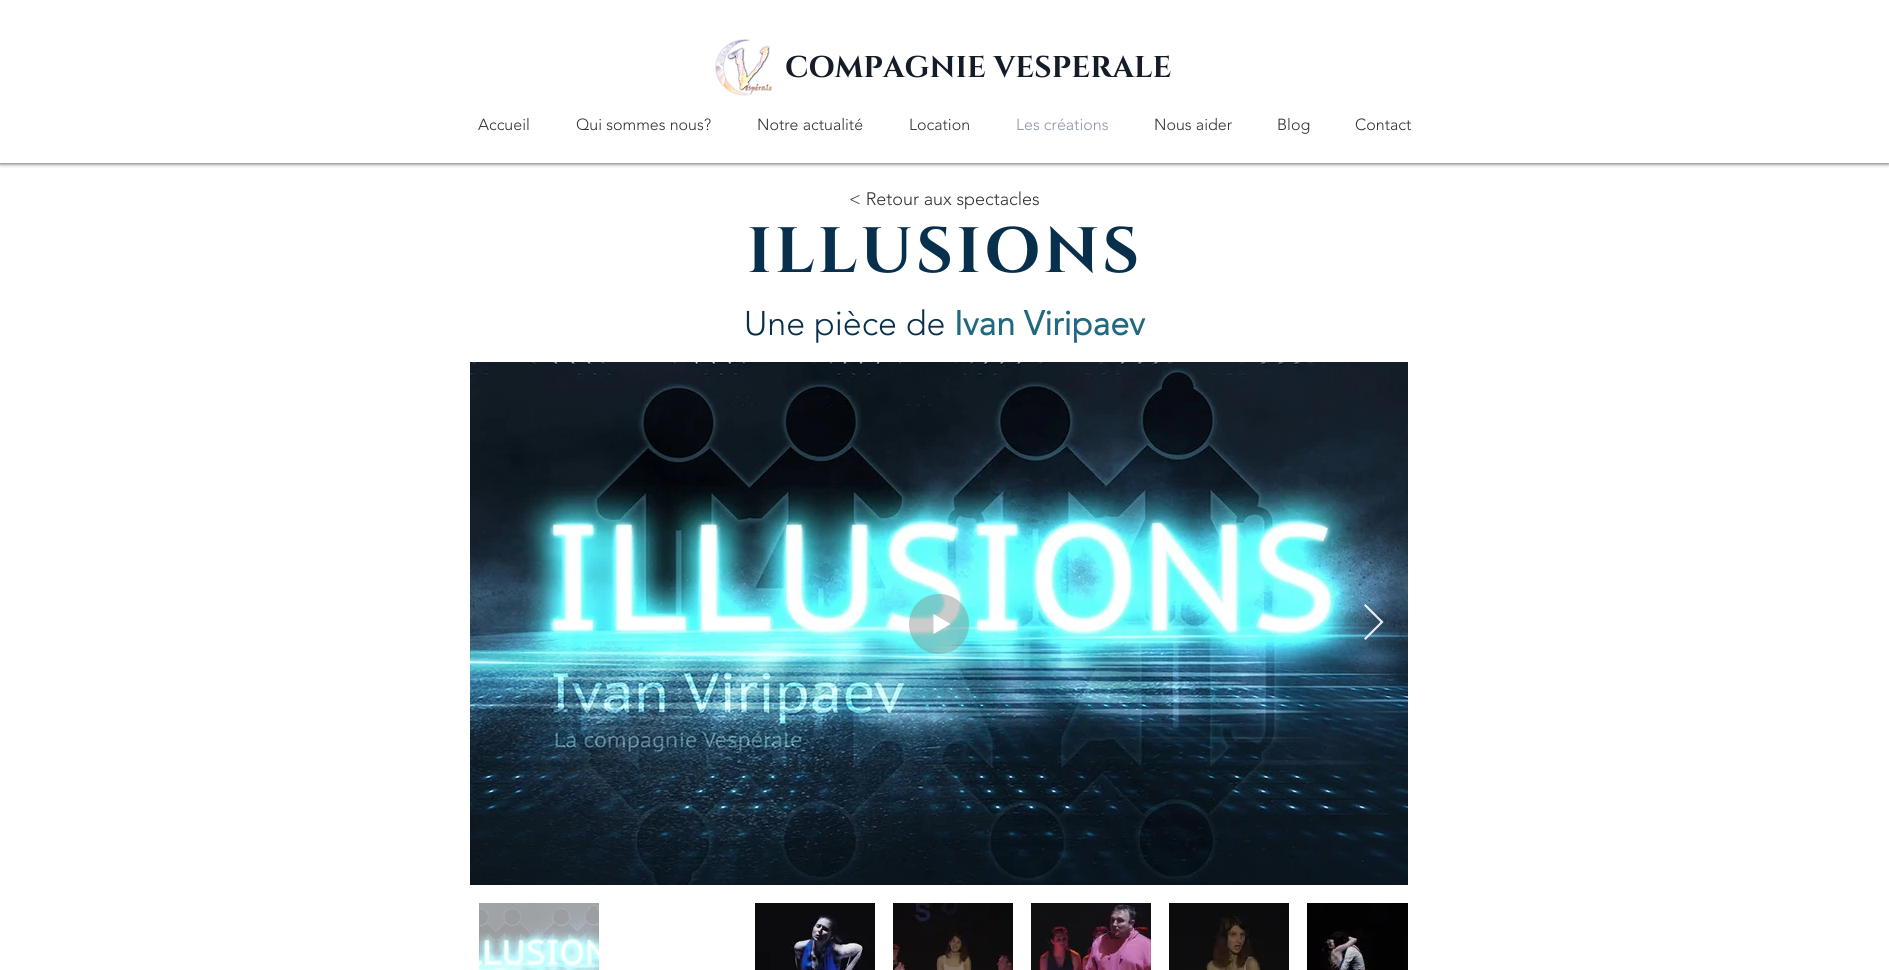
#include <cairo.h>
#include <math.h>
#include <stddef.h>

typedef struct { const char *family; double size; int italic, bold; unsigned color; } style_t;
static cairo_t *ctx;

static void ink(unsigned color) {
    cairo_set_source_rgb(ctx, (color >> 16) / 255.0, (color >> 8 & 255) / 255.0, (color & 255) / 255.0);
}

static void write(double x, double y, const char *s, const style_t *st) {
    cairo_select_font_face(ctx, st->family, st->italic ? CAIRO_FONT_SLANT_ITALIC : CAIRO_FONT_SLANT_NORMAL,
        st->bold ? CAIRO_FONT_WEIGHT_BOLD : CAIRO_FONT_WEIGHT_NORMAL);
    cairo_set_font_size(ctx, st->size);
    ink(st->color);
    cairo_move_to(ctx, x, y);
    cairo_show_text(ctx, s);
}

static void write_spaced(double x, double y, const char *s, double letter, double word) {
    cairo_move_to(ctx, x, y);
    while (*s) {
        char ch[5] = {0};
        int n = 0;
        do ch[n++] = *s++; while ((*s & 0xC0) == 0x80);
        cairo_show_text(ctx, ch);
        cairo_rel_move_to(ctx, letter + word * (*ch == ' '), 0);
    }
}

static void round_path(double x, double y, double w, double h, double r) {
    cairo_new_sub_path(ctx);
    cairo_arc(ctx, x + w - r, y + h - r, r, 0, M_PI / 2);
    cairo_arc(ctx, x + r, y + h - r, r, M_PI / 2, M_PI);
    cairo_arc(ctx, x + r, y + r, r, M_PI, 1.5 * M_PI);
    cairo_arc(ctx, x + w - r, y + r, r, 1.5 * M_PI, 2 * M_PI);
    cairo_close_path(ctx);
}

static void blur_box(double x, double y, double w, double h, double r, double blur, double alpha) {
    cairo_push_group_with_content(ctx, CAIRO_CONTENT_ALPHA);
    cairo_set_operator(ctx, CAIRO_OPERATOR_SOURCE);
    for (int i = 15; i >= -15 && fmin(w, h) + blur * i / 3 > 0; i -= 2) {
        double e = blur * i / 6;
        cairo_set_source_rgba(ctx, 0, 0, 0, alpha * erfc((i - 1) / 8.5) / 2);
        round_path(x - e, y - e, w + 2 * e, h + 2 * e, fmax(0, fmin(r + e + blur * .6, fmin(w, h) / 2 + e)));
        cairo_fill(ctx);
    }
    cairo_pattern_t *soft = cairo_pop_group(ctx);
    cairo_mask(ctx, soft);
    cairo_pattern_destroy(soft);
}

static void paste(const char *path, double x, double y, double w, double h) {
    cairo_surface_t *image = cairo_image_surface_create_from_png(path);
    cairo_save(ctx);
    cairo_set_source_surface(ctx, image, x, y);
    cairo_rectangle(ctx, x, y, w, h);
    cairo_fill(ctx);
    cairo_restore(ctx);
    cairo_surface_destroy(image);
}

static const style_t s1 = {"Cinzel", 30, 0, 1, 0x141d27};
static const style_t s2 = {"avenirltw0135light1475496 Light", 16, 0, 0, 0x303131};
static const style_t s3 = {"avenirltw0135light1475496 Light", 16, 0, 0, 0x8b98a7};
static const style_t s4 = {"avenirltw0135light1475496 Light", 18, 0, 0, 0x303131};
static const style_t s5 = {"avenirltw0135light1475496 Light", 34, 0, 0, 0x08304d};
static const style_t s6 = {"avenirltw0135light1475496", 34, 0, 1, 0x216980};

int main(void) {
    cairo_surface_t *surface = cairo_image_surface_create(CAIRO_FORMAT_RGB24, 1889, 970);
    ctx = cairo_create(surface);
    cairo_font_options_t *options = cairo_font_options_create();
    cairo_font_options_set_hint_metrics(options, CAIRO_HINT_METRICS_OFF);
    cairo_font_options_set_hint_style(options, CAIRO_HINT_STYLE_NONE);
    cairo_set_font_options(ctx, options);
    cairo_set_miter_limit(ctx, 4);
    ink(0xffffff);
    cairo_paint(ctx);
    cairo_save(ctx);
    cairo_rectangle(ctx, 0, 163, 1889, 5);
    cairo_clip(ctx);
    ink(0x000000);
    blur_box(0, 1, 1889, 163, 0, 2, 0.6);
    cairo_restore(ctx);
    paste("pic1.png", 715, 39, 58, 57);
    write(785, 77, "COMPAGNIE VESPERALE", &s1);
    write(478, 130, "Accueil", &s2);
    write(576, 130, "Qui sommes nous?", &s2);
    write(757, 130, "Notre actualité", &s2);
    write(909, 130, "Location", &s2);
    write(1016, 130, "Les créations", &s3);
    write(1154, 130, "Nous aider", &s2);
    write(1277, 130, "Blog", &s2);
    write(1355, 130, "Contact", &s2);
    write(849, 205, "< Retour aux spectacles", &s4);
    cairo_select_font_face(ctx, "Cinzel", CAIRO_FONT_SLANT_NORMAL, CAIRO_FONT_WEIGHT_BOLD);
    cairo_set_font_size(ctx, 64);
    ink(0x08304d);
    write_spaced(747, 272, "ILLUSIONS", 3.25, 0);
    write(744, 335, "Une pièce de", &s5);
    write(954, 335, "Ivan Viripaev", &s6);
    paste("pic2.png", 470, 362, 938, 523);
    cairo_set_source_rgba(ctx, 0.522, 0.522, 0.522, 0.42);
    cairo_set_fill_rule(ctx, CAIRO_FILL_RULE_EVEN_ODD);
    cairo_new_path(ctx);
    cairo_move_to(ctx, 939, 594);
    cairo_curve_to(ctx, 956, 594, 969, 607, 969, 624);
    cairo_curve_to(ctx, 969, 641, 956, 654, 939, 654);
    cairo_curve_to(ctx, 922, 654, 909, 641, 909, 624);
    cairo_curve_to(ctx, 909, 607, 922, 594, 939, 594);
    cairo_close_path(ctx);
    cairo_fill(ctx);
    ink(0xffffff);
    cairo_set_fill_rule(ctx, CAIRO_FILL_RULE_WINDING);
    cairo_new_path(ctx);
    cairo_move_to(ctx, 950.5, 624);
    cairo_line_to(ctx, 933.5, 634);
    cairo_line_to(ctx, 933.5, 614);
    cairo_close_path(ctx);
    cairo_fill(ctx);
    cairo_set_source_rgba(ctx, 1, 1, 1, 0.9);
    cairo_new_path(ctx);
    cairo_move_to(ctx, 1364, 605.5);
    cairo_line_to(ctx, 1365.5, 604);
    cairo_line_to(ctx, 1383.5, 622);
    cairo_line_to(ctx, 1365.5, 640);
    cairo_line_to(ctx, 1364, 638.5);
    cairo_line_to(ctx, 1380.5, 622);
    cairo_close_path(ctx);
    cairo_fill(ctx);
    paste("pic3.png", 479, 903, 120, 67);
    paste("pic4.png", 755, 903, 120, 67);
    paste("pic5.png", 893, 903, 120, 67);
    paste("pic6.png", 1031, 903, 120, 67);
    paste("pic7.png", 1169, 903, 120, 67);
    paste("pic8.png", 1307, 903, 101, 67);
    cairo_surface_write_to_png(surface, "screenshot.png");
    cairo_font_options_destroy(options);
    cairo_destroy(ctx);
    cairo_surface_destroy(surface);
    return 0;
}
